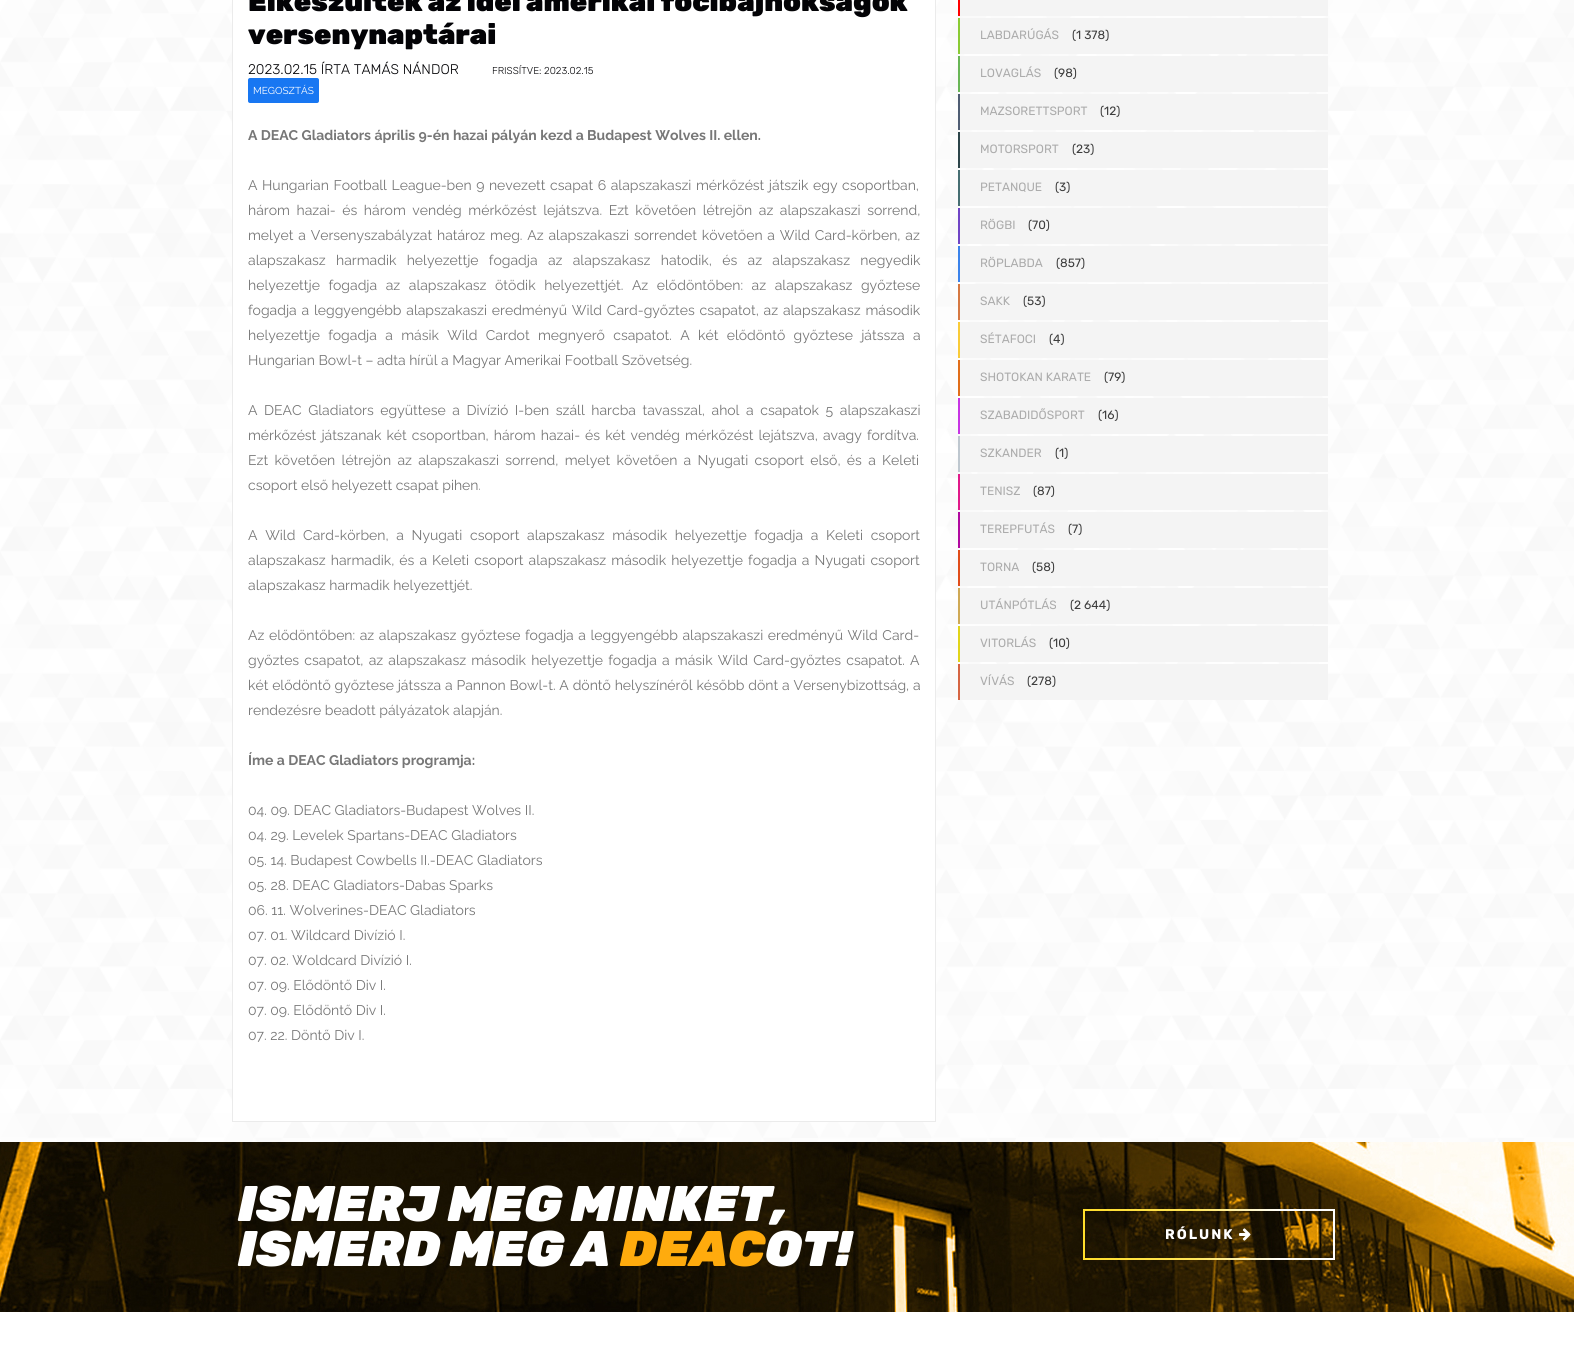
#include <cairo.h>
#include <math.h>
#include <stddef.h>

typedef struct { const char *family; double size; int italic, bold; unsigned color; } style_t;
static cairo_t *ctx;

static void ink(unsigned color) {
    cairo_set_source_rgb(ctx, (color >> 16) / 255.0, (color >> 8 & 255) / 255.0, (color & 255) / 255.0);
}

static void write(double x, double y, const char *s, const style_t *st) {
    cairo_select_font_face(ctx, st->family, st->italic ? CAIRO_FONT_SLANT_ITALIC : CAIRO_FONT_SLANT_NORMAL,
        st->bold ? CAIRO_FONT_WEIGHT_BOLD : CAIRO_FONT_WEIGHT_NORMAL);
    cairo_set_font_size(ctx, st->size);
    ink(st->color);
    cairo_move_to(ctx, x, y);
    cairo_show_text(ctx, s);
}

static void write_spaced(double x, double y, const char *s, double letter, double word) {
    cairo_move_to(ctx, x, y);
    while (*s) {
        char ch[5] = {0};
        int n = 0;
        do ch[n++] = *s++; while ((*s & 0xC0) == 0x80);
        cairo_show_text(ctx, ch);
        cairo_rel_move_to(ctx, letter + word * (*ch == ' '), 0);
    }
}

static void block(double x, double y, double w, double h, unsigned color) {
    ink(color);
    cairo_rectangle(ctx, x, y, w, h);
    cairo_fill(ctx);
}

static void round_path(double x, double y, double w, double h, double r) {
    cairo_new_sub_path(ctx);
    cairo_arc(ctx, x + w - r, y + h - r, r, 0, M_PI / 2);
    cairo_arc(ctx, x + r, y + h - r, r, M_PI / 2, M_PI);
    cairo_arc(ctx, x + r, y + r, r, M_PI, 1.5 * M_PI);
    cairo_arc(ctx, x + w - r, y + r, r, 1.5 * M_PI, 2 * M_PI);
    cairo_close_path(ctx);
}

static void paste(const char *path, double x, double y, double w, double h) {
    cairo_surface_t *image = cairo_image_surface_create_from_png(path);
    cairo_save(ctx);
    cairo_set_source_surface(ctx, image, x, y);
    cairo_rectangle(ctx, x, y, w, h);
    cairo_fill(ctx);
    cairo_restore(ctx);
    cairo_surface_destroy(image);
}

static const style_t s1 = {"Rubik Black", 28, 0, 0, 0x030306};
static const style_t s2 = {"Rubik Light", 14, 0, 0, 0x030306};
static const style_t s3 = {"Rubik Light", 10, 0, 0, 0x030306};
static const style_t s4 = {"Raleway", 10, 0, 0, 0xffffff};
static const style_t s5 = {"Raleway", 14, 0, 1, 0x777777};
static const style_t s6 = {"Raleway", 14, 0, 0, 0x777777};
static const style_t s7 = {"Rubik", 12, 0, 0, 0xacacac};
static const style_t s8 = {"Rubik", 12, 0, 0, 0x3d3d3d};
static const style_t s9 = {"Rubik Black", 50, 1, 0, 0xffffff};
static const style_t s10 = {"Rubik Black", 50, 1, 0, 0xffab0d};

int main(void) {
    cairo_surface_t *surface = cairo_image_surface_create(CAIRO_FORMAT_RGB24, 1574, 1363);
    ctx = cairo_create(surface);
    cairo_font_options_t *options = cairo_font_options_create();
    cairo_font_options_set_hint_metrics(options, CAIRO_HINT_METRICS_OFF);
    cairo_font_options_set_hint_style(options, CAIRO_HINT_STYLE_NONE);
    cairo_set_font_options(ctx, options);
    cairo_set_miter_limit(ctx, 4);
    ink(0xffffff);
    cairo_paint(ctx);
    paste("pic1.png", 0, 0, 1574, 1142);
    ink(0xffffff);
    cairo_rectangle(ctx, 232.5, -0.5, 703, 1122);
    cairo_fill_preserve(ctx);
    ink(0xebebeb);
    cairo_set_line_width(ctx, 1);
    cairo_stroke(ctx);
    write(248, 11, "Elkészültek az idei amerikai focibajnokságok", &s1);
    write(248, 44, "versenynaptárai", &s1);
    write(248, 74, "2023.02.15 ÍRTA TAMÁS NÁNDOR", &s2);
    write(492, 74, "FRISSÍTVE: 2023.02.15", &s3);
    ink(0x1877f2);
    round_path(248, 78, 71, 25, 2);
    cairo_fill(ctx);
    write(253, 94, "MEGOSZTÁS", &s4);
    write(248, 140, "A DEAC Gladiators április 9-én hazai pályán kezd a Budapest Wolves II. ellen.", &s5);
    cairo_select_font_face(ctx, "Raleway", CAIRO_FONT_SLANT_NORMAL, CAIRO_FONT_WEIGHT_NORMAL);
    write_spaced(248, 190, "A Hungarian Football League-ben 9 nevezett csapat 6 alapszakaszi mérkőzést játszik egy csoportban,", 0, 1);
    write_spaced(248, 215, "három hazai- és három vendég mérkőzést lejátszva. Ezt követően létrejön az alapszakaszi sorrend,", 0, 3);
    write_spaced(248, 240, "melyet a Versenyszabályzat határoz meg. Az alapszakaszi sorrendet követően a Wild Card-körben, az", 0, 1.25);
    write_spaced(248, 265, "alapszakasz harmadik helyezettje fogadja az alapszakasz hatodik, és az alapszakasz negyedik", 0, 6.75);
    write_spaced(248, 290, "helyezettje fogadja az alapszakasz ötödik helyezettjét. Az elődöntőben: az alapszakasz győztese", 0, 5);
    write_spaced(248, 315, "fogadja a leggyengébb alapszakaszi eredményű Wild Card-győztes csapatot, az alapszakasz második", 0, 1.25);
    write_spaced(248, 340, "helyezettje fogadja a másik Wild Cardot megnyerő csapatot. A két elődöntő győztese játssza a", 0, 4.75);
    write(248, 365, "Hungarian Bowl-t – adta hírül a Magyar Amerikai Football Szövetség.", &s6);
    write_spaced(248, 415, "A DEAC Gladiators együttese a Divízió I-ben száll harcba tavasszal, ahol a csapatok 5 alapszakaszi", 0, 3);
    write_spaced(248, 440, "mérkőzést játszanak két csoportban, három hazai- és két vendég mérkőzést lejátszva, avagy fordítva.", 0, 1.5);
    write_spaced(248, 465, "Ezt követően létrejön az alapszakaszi sorrend, melyet követően a Nyugati csoport első, és a Keleti", 0, 2.75);
    write(248, 490, "csoport első helyezett csapat pihen.", &s6);
    write_spaced(248, 540, "A Wild Card-körben, a Nyugati csoport alapszakasz második helyezettje fogadja a Keleti csoport", 0, 4.1);
    write_spaced(248, 565, "alapszakasz harmadik, és a Keleti csoport alapszakasz második helyezettje fogadja a Nyugati csoport", 0, 1.5);
    write(248, 590, "alapszakasz harmadik helyezettjét.", &s6);
    write_spaced(248, 640, "Az elődöntőben: az alapszakasz győztese fogadja a leggyengébb alapszakaszi eredményű Wild Card-", 0, 1);
    write_spaced(248, 665, "győztes csapatot, az alapszakasz második helyezettje fogadja a másik Wild Card-győztes csapatot. A", 0, 1.6);
    write_spaced(248, 690, "két elődöntő győztese játssza a Pannon Bowl-t. A döntő helyszínéről később dönt a Versenybizottság, a", 0, 0.25);
    write(248, 715, "rendezésre beadott pályázatok alapján.", &s6);
    write(248, 765, "Íme a DEAC Gladiators programja:", &s5);
    write(248, 815, "04. 09. DEAC Gladiators-Budapest Wolves II.", &s6);
    write(248, 840, "04. 29. Levelek Spartans-DEAC Gladiators", &s6);
    write(248, 865, "05. 14. Budapest Cowbells II.-DEAC Gladiators", &s6);
    write(248, 890, "05. 28. DEAC Gladiators-Dabas Sparks", &s6);
    write(248, 915, "06. 11. Wolverines-DEAC Gladiators", &s6);
    write(248, 940, "07. 01. Wildcard Divízió I.", &s6);
    write(248, 965, "07. 02. Woldcard Divízió I.", &s6);
    write(248, 990, "07. 09. Elődöntő Div I.", &s6);
    write(248, 1015, "07. 09. Elődöntő Div I.", &s6);
    write(248, 1040, "07. 22. Döntő Div I.", &s6);
    block(960, 0, 368, 16, 0xf4f4f4);
    block(958, 0, 2, 16, 0xff0000);
    block(960, 18, 368, 36, 0xf4f4f4);
    block(958, 18, 2, 36, 0x8acb34);
    write(980, 39, "LABDARÚGÁS", &s7);
    write(1072, 39, "(1 378)", &s8);
    block(960, 56, 368, 36, 0xf4f4f4);
    block(958, 56, 2, 36, 0x69b656);
    write(980, 77, "LOVAGLÁS", &s7);
    write(1054, 77, "(98)", &s8);
    block(960, 94, 368, 36, 0xf4f4f4);
    block(958, 94, 2, 36, 0x4f5d73);
    write(980, 115, "MAZSORETTSPORT", &s7);
    write(1100, 115, "(12)", &s8);
    block(960, 132, 368, 36, 0xf4f4f4);
    block(958, 132, 2, 36, 0x2d454a);
    write(980, 153, "MOTORSPORT", &s7);
    write(1072, 153, "(23)", &s8);
    block(960, 170, 368, 36, 0xf4f4f4);
    block(958, 170, 2, 36, 0x466e72);
    write(980, 191, "PETANQUE", &s7);
    write(1055, 191, "(3)", &s8);
    block(960, 208, 368, 36, 0xf4f4f4);
    block(958, 208, 2, 36, 0x7045c6);
    write(980, 229, "RÖGBI", &s7);
    write(1028, 229, "(70)", &s8);
    block(960, 246, 368, 36, 0xf4f4f4);
    block(958, 246, 2, 36, 0x3b83eb);
    write(980, 267, "RÖPLABDA", &s7);
    write(1056, 267, "(857)", &s8);
    block(960, 284, 368, 36, 0xf4f4f4);
    block(958, 284, 2, 36, 0xd67943);
    write(980, 305, "SAKK", &s7);
    write(1023, 305, "(53)", &s8);
    block(960, 322, 368, 36, 0xf4f4f4);
    block(958, 322, 2, 36, 0xf9cb38);
    write(980, 343, "SÉTAFOCI", &s7);
    write(1049, 343, "(4)", &s8);
    block(960, 360, 368, 36, 0xf4f4f4);
    block(958, 360, 2, 36, 0xe16e1a);
    write(980, 381, "SHOTOKAN KARATE", &s7);
    write(1104, 381, "(79)", &s8);
    block(960, 398, 368, 36, 0xf4f4f4);
    block(958, 398, 2, 36, 0xc735e4);
    write(980, 419, "SZABADIDŐSPORT", &s7);
    write(1098, 419, "(16)", &s8);
    block(960, 436, 368, 36, 0xf4f4f4);
    block(958, 436, 2, 36, 0xbec7cf);
    write(980, 457, "SZKANDER", &s7);
    write(1055, 457, "(1)", &s8);
    block(960, 474, 368, 36, 0xf4f4f4);
    block(958, 474, 2, 36, 0xe11a8a);
    write(980, 495, "TENISZ", &s7);
    write(1033, 495, "(87)", &s8);
    block(960, 512, 368, 36, 0xf4f4f4);
    block(958, 512, 2, 36, 0xb109a0);
    write(980, 533, "TEREPFUTÁS", &s7);
    write(1068, 533, "(7)", &s8);
    block(960, 550, 368, 36, 0xf4f4f4);
    block(958, 550, 2, 36, 0xe14d1a);
    write(980, 571, "TORNA", &s7);
    write(1032, 571, "(58)", &s8);
    block(960, 588, 368, 36, 0xf4f4f4);
    block(958, 588, 2, 36, 0xcfa955);
    write(980, 609, "UTÁNPÓTLÁS", &s7);
    write(1070, 609, "(2 644)", &s8);
    block(960, 626, 368, 36, 0xf4f4f4);
    block(958, 626, 2, 36, 0xe1d51a);
    write(980, 647, "VITORLÁS", &s7);
    write(1049, 647, "(10)", &s8);
    block(960, 664, 368, 36, 0xf4f4f4);
    block(958, 664, 2, 36, 0xd66543);
    write(980, 685, "VÍVÁS", &s7);
    write(1027, 685, "(278)", &s8);
    paste("pic2.png", 0, 1142, 1574, 170);
    write(238, 1221, "ISMERJ MEG MINKET,", &s9);
    write(238, 1266, "ISMERD MEG A", &s9);
    write(620, 1266, "DEAC", &s10);
    write(765, 1266, "OT!", &s9);
    paste("pic3.png", 1083, 1209, 252, 51);
    cairo_select_font_face(ctx, "Rubik", CAIRO_FONT_SLANT_NORMAL, CAIRO_FONT_WEIGHT_BOLD);
    cairo_set_font_size(ctx, 14);
    write_spaced(1165, 1239, "RÓLUNK", 2, 0);
    paste("pic4.png", 1239, 1228, 12, 13);
    cairo_surface_write_to_png(surface, "screenshot.png");
    cairo_font_options_destroy(options);
    cairo_destroy(ctx);
    cairo_surface_destroy(surface);
    return 0;
}
